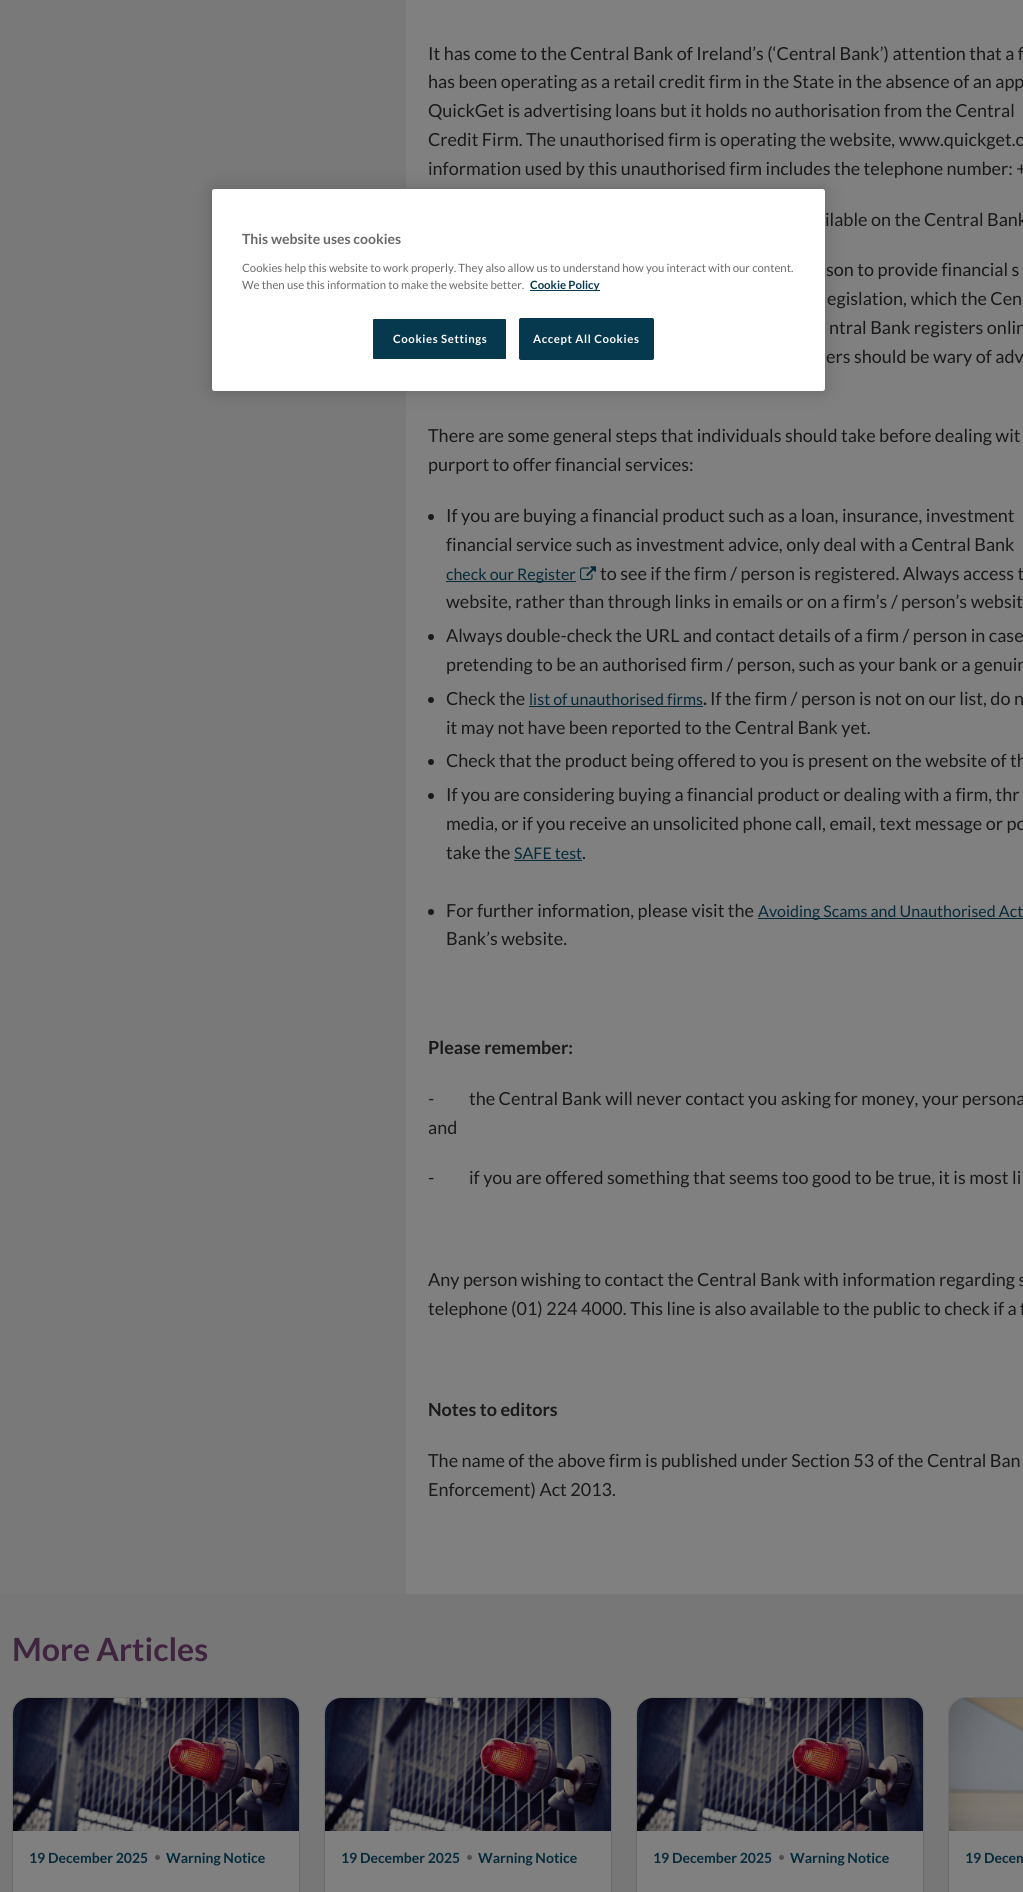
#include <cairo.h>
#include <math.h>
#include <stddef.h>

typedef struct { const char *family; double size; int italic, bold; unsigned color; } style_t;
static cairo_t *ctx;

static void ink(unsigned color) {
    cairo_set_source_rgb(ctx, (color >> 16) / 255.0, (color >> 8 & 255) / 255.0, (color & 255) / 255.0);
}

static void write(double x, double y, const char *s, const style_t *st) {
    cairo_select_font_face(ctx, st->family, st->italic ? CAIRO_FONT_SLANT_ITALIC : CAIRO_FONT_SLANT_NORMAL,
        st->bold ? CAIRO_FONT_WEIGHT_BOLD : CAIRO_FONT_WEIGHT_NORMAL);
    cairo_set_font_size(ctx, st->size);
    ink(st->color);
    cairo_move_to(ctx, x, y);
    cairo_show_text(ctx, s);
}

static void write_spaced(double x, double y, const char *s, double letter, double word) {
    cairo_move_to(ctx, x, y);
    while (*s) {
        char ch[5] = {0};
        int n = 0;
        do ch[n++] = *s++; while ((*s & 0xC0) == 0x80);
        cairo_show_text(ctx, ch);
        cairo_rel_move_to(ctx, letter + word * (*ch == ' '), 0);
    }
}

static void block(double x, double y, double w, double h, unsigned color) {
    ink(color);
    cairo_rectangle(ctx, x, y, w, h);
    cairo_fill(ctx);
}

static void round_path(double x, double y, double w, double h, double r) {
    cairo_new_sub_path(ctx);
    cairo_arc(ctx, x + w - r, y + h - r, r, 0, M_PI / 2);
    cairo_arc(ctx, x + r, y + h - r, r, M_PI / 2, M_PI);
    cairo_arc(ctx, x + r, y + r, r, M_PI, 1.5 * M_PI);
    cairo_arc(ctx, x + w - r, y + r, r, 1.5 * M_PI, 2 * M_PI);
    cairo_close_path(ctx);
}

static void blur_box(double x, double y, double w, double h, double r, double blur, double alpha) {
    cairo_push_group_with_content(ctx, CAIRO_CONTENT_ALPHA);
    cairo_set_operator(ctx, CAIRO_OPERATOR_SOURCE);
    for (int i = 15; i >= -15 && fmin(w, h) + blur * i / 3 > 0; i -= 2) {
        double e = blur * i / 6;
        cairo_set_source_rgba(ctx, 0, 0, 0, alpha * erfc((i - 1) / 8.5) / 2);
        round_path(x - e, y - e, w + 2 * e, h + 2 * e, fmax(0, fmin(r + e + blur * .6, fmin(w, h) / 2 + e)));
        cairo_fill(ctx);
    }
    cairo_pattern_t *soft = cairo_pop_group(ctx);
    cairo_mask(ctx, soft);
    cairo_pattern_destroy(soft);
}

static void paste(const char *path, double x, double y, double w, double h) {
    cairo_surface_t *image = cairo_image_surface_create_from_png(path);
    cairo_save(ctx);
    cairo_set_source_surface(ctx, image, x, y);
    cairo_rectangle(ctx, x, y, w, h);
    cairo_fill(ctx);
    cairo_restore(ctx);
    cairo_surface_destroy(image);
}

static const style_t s1 = {"Lato", 18, 0, 0, 0x19191a};
static const style_t s2 = {"Lato", 16, 0, 0, 0x062a39};
static const style_t s3 = {"Lato", 18, 0, 1, 0x19191a};
static const style_t s4 = {"Lato", 32, 0, 1, 0x3e243f};
static const style_t s5 = {"Lato", 14, 0, 1, 0x062a39};
static const style_t s6 = {"Lato", 14, 0, 1, 0x696969};
static const style_t s7 = {"Lato", 11.4, 0, 0, 0x696969};
static const style_t s8 = {"Lato", 11.4, 0, 1, 0x06384e};

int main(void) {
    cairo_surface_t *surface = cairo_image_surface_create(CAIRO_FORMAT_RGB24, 1023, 1892);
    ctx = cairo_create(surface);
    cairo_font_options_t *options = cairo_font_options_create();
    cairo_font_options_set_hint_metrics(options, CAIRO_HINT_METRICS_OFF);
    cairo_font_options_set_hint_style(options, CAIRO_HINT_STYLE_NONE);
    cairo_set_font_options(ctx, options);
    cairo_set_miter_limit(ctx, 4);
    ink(0x808080);
    cairo_paint(ctx);
    block(0, 0, 406, 1594, 0x797979);
    write(428, 60, "It has come to the Central Bank of Ireland’s (‘Central Bank’) attention that a f", &s1);
    write(428, 88, "has been operating as a retail credit firm in the State in the absence of an app", &s1);
    write(428, 117, "QuickGet is advertising loans but it holds no authorisation from the Central", &s1);
    write(428, 146, "Credit Firm. The unauthorised firm is operating the website, www.quickget.o", &s1);
    write(428, 175, "information used by this unauthorised firm includes the telephone number: +", &s1);
    write(825, 226, "ilable on the Central Bank", &s1);
    write(826, 276, "son to provide financial s", &s1);
    write(827, 305, "egislation, which the Cen", &s1);
    write(829, 334, "ntral Bank registers onlin", &s1);
    write(826, 363, "ers should be wary of adv", &s1);
    write(428, 442, "There are some general steps that individuals should take before dealing wit", &s1);
    write(428, 471, "purport to offer financial services:", &s1);
    cairo_new_path(ctx);
    cairo_arc(ctx, 431, 517, 3, 0, 2 * M_PI);
    cairo_fill(ctx);
    write(446, 522, "If you are buying a financial product such as a loan, insurance, investment", &s1);
    write(446, 551, "financial service such as investment advice, only deal with a Central Bank", &s1);
    block(446, 581, 130, 1, 0x062a39);
    write(446, 580, "check our Register", &s2);
    paste("pic1.png", 580, 566, 16, 14);
    write(600, 580, "to see if the firm / person is registered. Always access t", &s1);
    write(446, 608, "website, rather than through links in emails or on a firm’s / person’s websit", &s1);
    cairo_new_path(ctx);
    cairo_arc(ctx, 431, 637, 3, 0, 2 * M_PI);
    cairo_fill(ctx);
    write(446, 642, "Always double-check the URL and contact details of a firm / person in case", &s1);
    write(446, 671, "pretending to be an authorised firm / person, such as your bank or a genuin", &s1);
    cairo_new_path(ctx);
    cairo_arc(ctx, 431, 700, 3, 0, 2 * M_PI);
    cairo_fill(ctx);
    write(446, 705, "Check the", &s1);
    write(529, 705, "list of unauthorised firms", &s2);
    block(529, 706, 174, 1, 0x062a39);
    write(710, 705, "If the firm / person is not on our list, do n", &s1);
    write(703, 705, ".", &s3);
    write(446, 734, "it may not have been reported to the Central Bank yet.", &s1);
    cairo_new_path(ctx);
    cairo_arc(ctx, 431, 762, 3, 0, 2 * M_PI);
    cairo_fill(ctx);
    write(446, 767, "Check that the product being offered to you is present on the website of th", &s1);
    cairo_new_path(ctx);
    cairo_arc(ctx, 431, 796, 3, 0, 2 * M_PI);
    cairo_fill(ctx);
    write(446, 801, "If you are considering buying a financial product or dealing with a firm, thr", &s1);
    write(446, 830, "media, or if you receive an unsolicited phone call, email, text message or po", &s1);
    write(446, 859, "take the", &s1);
    write(514, 859, "SAFE test", &s2);
    block(514, 860, 68, 1, 0x062a39);
    write(582, 859, ".", &s1);
    cairo_new_path(ctx);
    cairo_arc(ctx, 431, 912, 3, 0, 2 * M_PI);
    cairo_fill(ctx);
    write(446, 917, "For further information, please visit the", &s1);
    block(758, 918, 265, 1, 0x062a39);
    write(758, 917, "Avoiding Scams and Unauthorised Act", &s2);
    write(446, 945, "Bank’s website.", &s1);
    write(428, 1054, "Please remember:", &s3);
    write(428, 1105, "-          the Central Bank will never contact you asking for money, your persona", &s1);
    write(428, 1134, "and", &s1);
    write(428, 1184, "-          if you are offered something that seems too good to be true, it is most li", &s1);
    write(428, 1286, "Any person wishing to contact the Central Bank with information regarding s", &s1);
    write(428, 1315, "telephone (01) 224 4000. This line is also available to the public to check if a f", &s1);
    write(428, 1416, "Notes to editors", &s3);
    write(428, 1467, "The name of the above firm is published under Section 53 of the Central Ban", &s1);
    write(428, 1496, "Enforcement) Act 2013.", &s1);
    block(0, 1594, 1023, 298, 0x777777);
    write(12, 1661, "More Articles", &s4);
    ink(0x808080);
    round_path(12.5, 1697.5, 287, 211, 15.5);
    cairo_fill_preserve(ctx);
    ink(0x6c6d6d);
    cairo_set_line_width(ctx, 1);
    cairo_stroke(ctx);
    paste("pic2.png", 13, 1698, 286, 133);
    write(29, 1863, "19 December 2025", &s5);
    ink(0x4d4d4d);
    cairo_new_path(ctx);
    cairo_arc(ctx, 157.5, 1857.5, 2.5, 0, 2 * M_PI);
    cairo_fill(ctx);
    write(166, 1863, "Warning Notice", &s5);
    ink(0x808080);
    round_path(324.5, 1697.5, 287, 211, 15.5);
    cairo_fill_preserve(ctx);
    ink(0x6c6d6d);
    cairo_stroke(ctx);
    paste("pic2.png", 325, 1698, 286, 133);
    write(341, 1863, "19 December 2025", &s5);
    ink(0x4d4d4d);
    cairo_new_path(ctx);
    cairo_arc(ctx, 469.5, 1857.5, 2.5, 0, 2 * M_PI);
    cairo_fill(ctx);
    write(478, 1863, "Warning Notice", &s5);
    ink(0x808080);
    round_path(636.5, 1697.5, 287, 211, 15.5);
    cairo_fill_preserve(ctx);
    ink(0x6c6d6d);
    cairo_stroke(ctx);
    paste("pic3.png", 637, 1698, 286, 133);
    write(653, 1863, "19 December 2025", &s5);
    ink(0x4d4d4d);
    cairo_new_path(ctx);
    cairo_arc(ctx, 781.5, 1857.5, 2.5, 0, 2 * M_PI);
    cairo_fill(ctx);
    write(790, 1863, "Warning Notice", &s5);
    ink(0x808080);
    round_path(948.5, 1697.5, 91, 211, 15.5);
    cairo_fill_preserve(ctx);
    ink(0x6c6d6d);
    cairo_stroke(ctx);
    paste("pic4.png", 949, 1698, 74, 133);
    write(965, 1863, "19 Decem", &s5);
    ink(0x000000);
    blur_box(212, 189, 613, 202, 2.5, 9, 0.2);
    ink(0xffffff);
    round_path(212, 189, 613, 202, 2.5);
    cairo_fill(ctx);
    write(242, 244, "This website uses cookies", &s6);
    write(242, 272, "Cookies help this website to work properly. They also allow us to understand how you interact with our content.", &s7);
    write(242, 289, "We then use this information to make the website better.", &s7);
    block(530, 290, 70, 1, 0x06384e);
    write(530, 289, "Cookie Policy", &s8);
    round_path(372.5, 318.5, 134, 41, 1.5);
    cairo_fill_preserve(ctx);
    ink(0xffffff);
    cairo_stroke(ctx);
    write_spaced(393, 343, "Cookies Settings", 0.6, 0);
    ink(0x06384e);
    round_path(519.5, 318.5, 134, 41, 1.5);
    cairo_fill_preserve(ctx);
    cairo_stroke(ctx);
    ink(0xffffff);
    write_spaced(533, 343, "Accept All Cookies", 0.6, 0);
    cairo_surface_write_to_png(surface, "screenshot.png");
    cairo_font_options_destroy(options);
    cairo_destroy(ctx);
    cairo_surface_destroy(surface);
    return 0;
}
